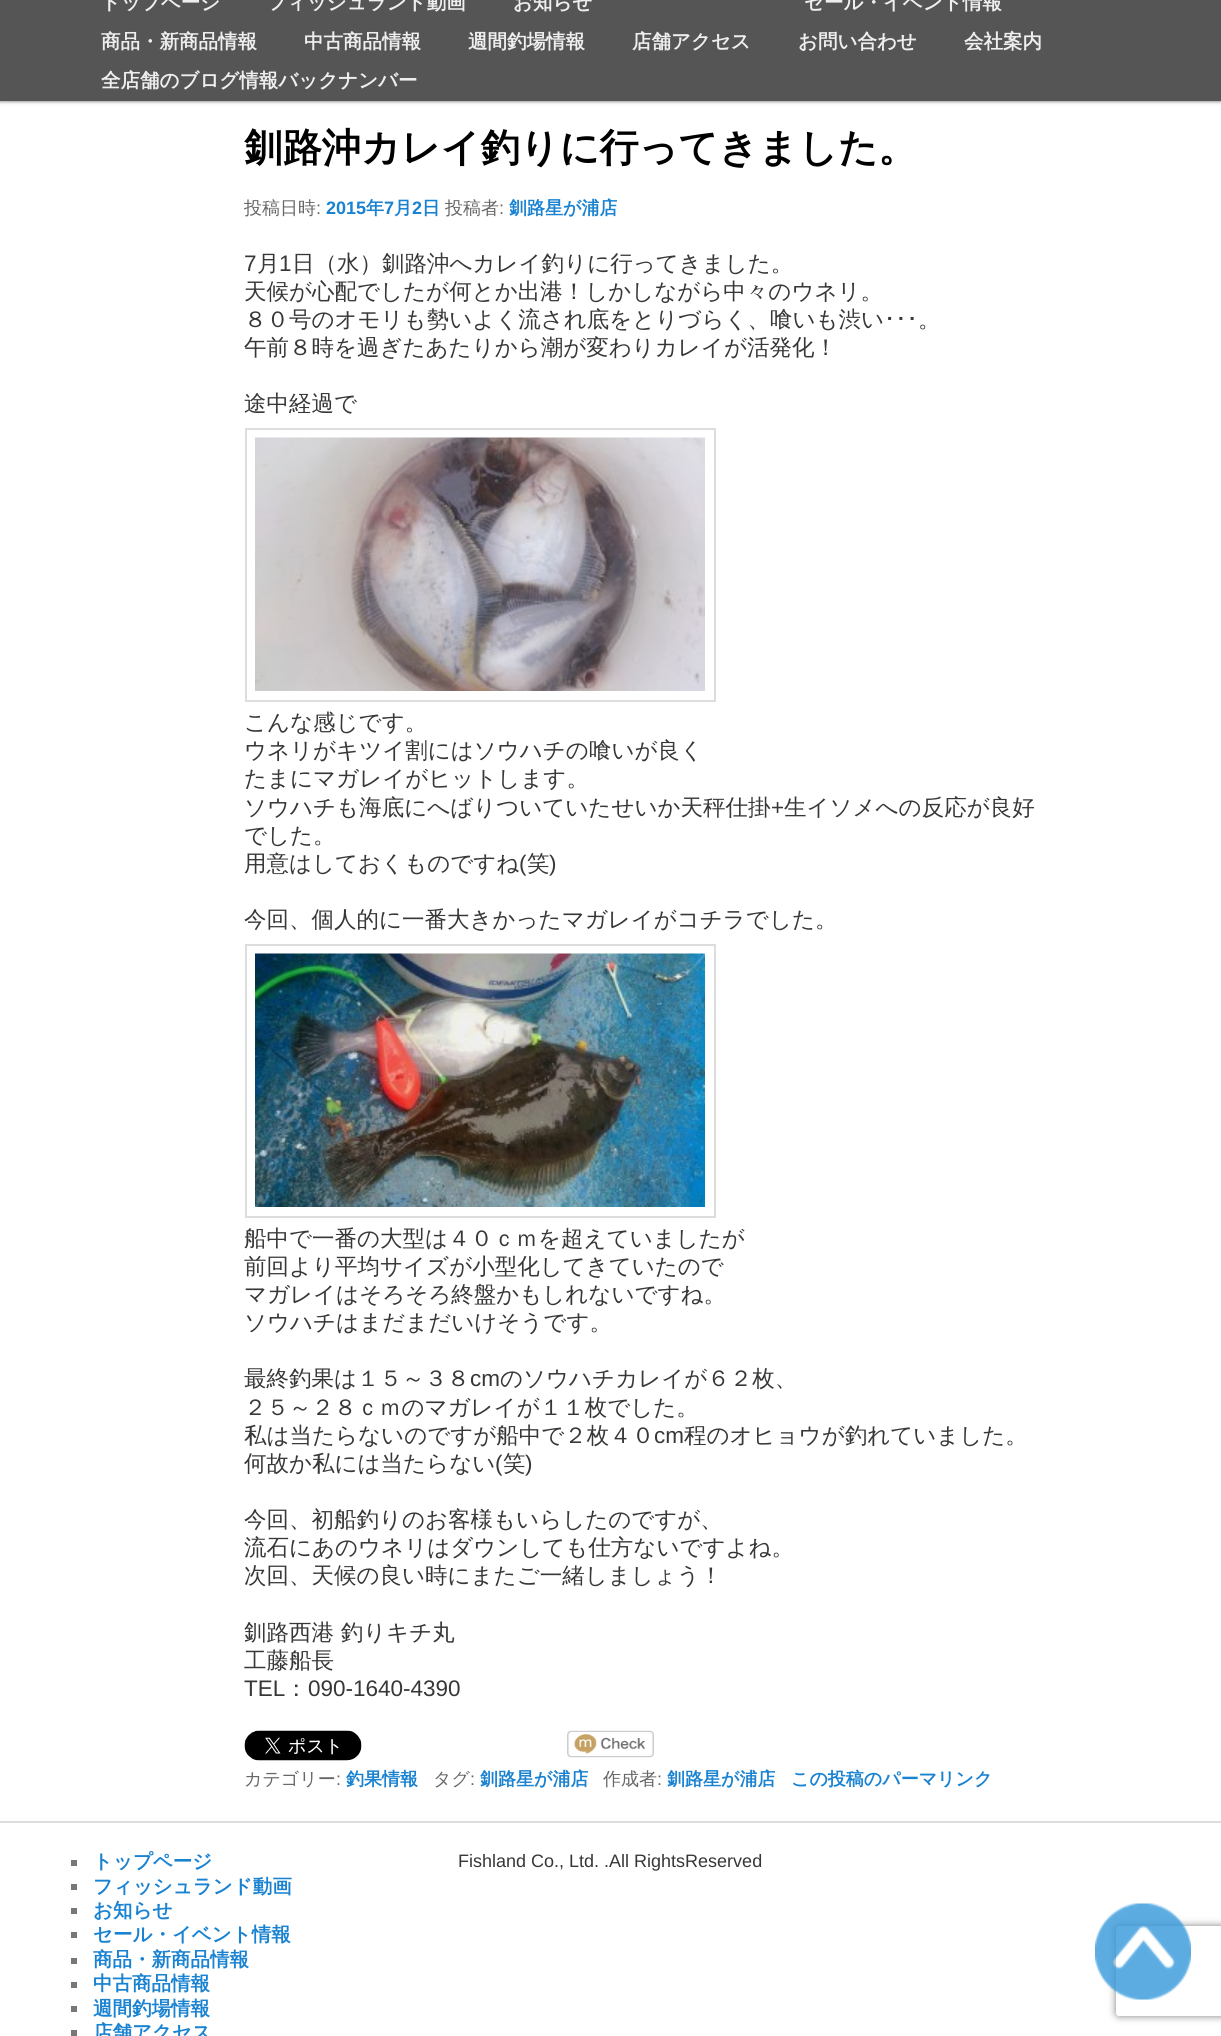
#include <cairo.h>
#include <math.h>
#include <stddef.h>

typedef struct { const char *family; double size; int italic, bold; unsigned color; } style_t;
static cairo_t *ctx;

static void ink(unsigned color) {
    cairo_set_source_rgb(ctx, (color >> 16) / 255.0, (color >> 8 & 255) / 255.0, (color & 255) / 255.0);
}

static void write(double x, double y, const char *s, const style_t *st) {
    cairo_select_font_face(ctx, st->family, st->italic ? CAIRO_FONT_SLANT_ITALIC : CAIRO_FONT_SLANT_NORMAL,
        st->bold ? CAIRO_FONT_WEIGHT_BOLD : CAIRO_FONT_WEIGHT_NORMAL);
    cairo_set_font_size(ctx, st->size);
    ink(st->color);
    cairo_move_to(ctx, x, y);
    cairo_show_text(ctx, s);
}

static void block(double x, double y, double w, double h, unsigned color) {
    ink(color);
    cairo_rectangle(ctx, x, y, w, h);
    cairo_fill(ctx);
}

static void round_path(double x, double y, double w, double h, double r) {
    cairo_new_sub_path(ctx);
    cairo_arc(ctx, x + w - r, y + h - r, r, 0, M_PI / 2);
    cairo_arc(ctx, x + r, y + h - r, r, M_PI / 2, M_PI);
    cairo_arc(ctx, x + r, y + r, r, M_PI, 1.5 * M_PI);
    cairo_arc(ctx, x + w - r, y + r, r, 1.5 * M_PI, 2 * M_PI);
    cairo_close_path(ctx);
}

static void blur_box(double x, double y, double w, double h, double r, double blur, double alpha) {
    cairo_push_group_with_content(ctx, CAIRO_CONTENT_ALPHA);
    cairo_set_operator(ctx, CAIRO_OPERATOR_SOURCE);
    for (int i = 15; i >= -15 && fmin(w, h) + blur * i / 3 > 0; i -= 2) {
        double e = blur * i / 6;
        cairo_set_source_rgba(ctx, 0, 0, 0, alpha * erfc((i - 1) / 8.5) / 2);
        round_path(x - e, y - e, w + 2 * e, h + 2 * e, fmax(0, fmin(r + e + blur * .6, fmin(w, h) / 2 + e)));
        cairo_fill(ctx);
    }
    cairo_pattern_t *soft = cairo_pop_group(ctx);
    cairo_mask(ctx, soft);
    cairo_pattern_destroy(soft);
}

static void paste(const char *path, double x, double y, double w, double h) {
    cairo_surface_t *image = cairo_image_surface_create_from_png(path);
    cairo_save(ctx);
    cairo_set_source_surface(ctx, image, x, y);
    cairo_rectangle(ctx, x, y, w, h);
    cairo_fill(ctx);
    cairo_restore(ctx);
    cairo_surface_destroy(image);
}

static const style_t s1 = {"WenQuanYi Zen Hei", 19.5, 0, 1, 0xeeeeee};
static const style_t s2 = {"WenQuanYi Zen Hei", 39, 0, 1, 0x000000};
static const style_t s3 = {"WenQuanYi Zen Hei Medium", 18, 0, 0, 0x666666};
static const style_t s4 = {"Liberation Sans", 18, 0, 0, 0x666666};
static const style_t s5 = {"Liberation Sans", 18, 0, 1, 0x1982d1};
static const style_t s6 = {"WenQuanYi Zen Hei", 18, 0, 1, 0x1982d1};
static const style_t s7 = {"Liberation Sans", 22.5, 0, 0, 0x373737};
static const style_t s8 = {"WenQuanYi Zen Hei Medium", 22.5, 0, 0, 0x373737};
static const style_t s9 = {"IPAPGothic", 22.5, 0, 0, 0x373737};
static const style_t s10 = {"WenQuanYi Zen Hei", 19.5, 0, 1, 0x1982d1};
static const style_t s11 = {"Liberation Sans", 18, 0, 0, 0x373737};

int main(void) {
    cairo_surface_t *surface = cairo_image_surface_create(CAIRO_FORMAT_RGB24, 1221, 2036);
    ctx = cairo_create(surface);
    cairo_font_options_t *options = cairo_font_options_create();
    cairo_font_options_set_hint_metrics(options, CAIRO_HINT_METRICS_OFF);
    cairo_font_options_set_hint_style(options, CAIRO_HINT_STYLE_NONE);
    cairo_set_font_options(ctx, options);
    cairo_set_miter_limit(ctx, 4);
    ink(0xffffff);
    cairo_paint(ctx);
    ink(0x000000);
    blur_box(0, -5, 1221, 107, 0, 1.5, 0.4);
    block(0, 0, 1221, 101, 0x555555);
    write(101, 9, "トップページ", &s1);
    write(267, 9, "フィッシュランド動画", &s1);
    write(513, 9, "お知らせ", &s1);
    write(804, 9, "セール・イベント情報", &s1);
    write(101, 48, "商品・新商品情報", &s1);
    write(304, 48, "中古商品情報", &s1);
    write(468, 48, "週間釣場情報", &s1);
    write(632, 48, "店舗アクセス", &s1);
    write(798, 48, "お問い合わせ", &s1);
    write(964, 48, "会社案内", &s1);
    write(101, 87, "全店舗のブログ情報バックナンバー", &s1);
    write(244, 161, "釧路沖カレイ釣りに行ってきました。", &s2);
    write(244, 214, "投稿日時", &s3);
    write(316, 214, ":", &s4);
    write(326, 214, "2015", &s5);
    write(366, 214, "年", &s6);
    write(384, 214, "7", &s5);
    write(394, 214, "月", &s6);
    write(412, 214, "2", &s5);
    write(422, 214, "日", &s6);
    write(445, 214, "投稿者", &s3);
    write(499, 214, ":", &s4);
    write(509, 214, "釧路星が浦店", &s6);
    write(244, 271, "7", &s7);
    write(257, 271, "月", &s8);
    write(279, 271, "1", &s7);
    write(292, 271, "日（水）釧路沖へカレイ釣りに行ってきました。", &s8);
    write(244, 299, "天候が心配でしたが何とか出港！しかしながら中々のウネリ。", &s8);
    write(244, 327, "８０号のオモリも勢いよく流され底をとりづらく、喰いも渋い", &s8);
    write(884, 327, "･･･", &s9);
    write(918, 327, "。", &s8);
    write(244, 355, "午前８時を過ぎたあたりから潮が変わりカレイが活発化！", &s8);
    write(244, 411, "途中経過で", &s8);
    cairo_rectangle(ctx, 246, 429, 469, 272);
    ink(0xdddddd);
    cairo_stroke(ctx);
    paste("pic1.png", 255, 437, 450, 254);
    write(244, 730, "こんな感じです。", &s8);
    write(244, 758, "ウネリがキツイ割にはソウハチの喰いが良く", &s8);
    write(244, 786, "たまにマガレイがヒットします。", &s8);
    write(244, 815, "ソウハチも海底にへばりついていたせいか天秤仕掛", &s8);
    write(771, 815, "+", &s7);
    write(784, 815, "生イソメへの反応が良好", &s8);
    write(244, 843, "でした。", &s8);
    write(244, 871, "用意はしておくものですね", &s8);
    write(519, 871, "(", &s7);
    write(527, 871, "笑", &s8);
    write(549, 871, ")", &s7);
    write(244, 927, "今回、個人的に一番大きかったマガレイがコチラでした。", &s8);
    cairo_rectangle(ctx, 246, 945, 469, 272);
    ink(0xdddddd);
    cairo_stroke(ctx);
    paste("pic2.png", 255, 953, 450, 254);
    write(244, 1246, "船中で一番の大型は４０ｃｍを超えていましたが", &s8);
    write(244, 1274, "前回より平均サイズが小型化してきていたので", &s8);
    write(244, 1302, "マガレイはそろそろ終盤かもしれないですね。", &s8);
    write(244, 1330, "ソウハチはまだまだいけそうです。", &s8);
    write(244, 1386, "最終釣果は１５～３８", &s8);
    write(470, 1386, "cm", &s7);
    write(500, 1386, "のソウハチカレイが６２枚、", &s8);
    write(244, 1415, "２５～２８ｃｍのマガレイが１１枚でした。", &s8);
    write(244, 1443, "私は当たらないのですが船中で２枚４０", &s8);
    write(654, 1443, "cm", &s7);
    write(684, 1443, "程のオヒョウが釣れていました。", &s8);
    write(244, 1471, "何故か私には当たらない", &s8);
    write(495, 1471, "(", &s7);
    write(503, 1471, "笑", &s8);
    write(525, 1471, ")", &s7);
    write(244, 1527, "今回、初船釣りのお客様もいらしたのですが、", &s8);
    write(244, 1555, "流石にあのウネリはダウンしても仕方ないですよね。", &s8);
    write(244, 1583, "次回、天候の良い時にまたご一緒しましょう！", &s8);
    write(244, 1640, "釧路西港 釣りキチ丸", &s8);
    write(244, 1668, "工藤船長", &s8);
    write(244, 1696, "TEL", &s7);
    write(285, 1696, "：", &s8);
    write(308, 1696, "090-1640-4390", &s7);
    paste("pic3.png", 244, 1730, 118, 31);
    paste("pic4.png", 567, 1730, 87, 28);
    write(244, 1785, "カテゴリー", &s3);
    write(336, 1785, ":", &s4);
    write(346, 1785, "釣果情報", &s6);
    write(433, 1785, "タグ", &s3);
    write(470, 1785, ":", &s4);
    write(480, 1785, "釧路星が浦店", &s6);
    write(603, 1785, "作成者", &s3);
    write(657, 1785, ":", &s4);
    write(667, 1785, "釧路星が浦店", &s6);
    write(791, 1785, "この投稿のパーマリンク", &s6);
    block(0, 1821, 1221, 2, 0xdddddd);
    block(71, 1860, 6, 6, 0x777777);
    write(93, 1868, "トップページ", &s10);
    block(71, 1884, 6, 6, 0x777777);
    write(93, 1893, "フィッシュランド動画", &s10);
    block(71, 1908, 6, 6, 0x777777);
    write(93, 1917, "お知らせ", &s10);
    block(71, 1932, 6, 6, 0x777777);
    write(93, 1941, "セール・イベント情報", &s10);
    block(71, 1958, 6, 6, 0x777777);
    write(93, 1966, "商品・新商品情報", &s10);
    block(71, 1982, 6, 6, 0x777777);
    write(93, 1990, "中古商品情報", &s10);
    block(71, 2006, 6, 6, 0x777777);
    write(93, 2015, "週間釣場情報", &s10);
    block(71, 2030, 6, 6, 0x777777);
    write(93, 2039, "店舗アクセス", &s10);
    write(458, 1867, "Fishland Co., Ltd. .All RightsReserved", &s11);
    cairo_save(ctx);
    cairo_set_fill_rule(ctx, CAIRO_FILL_RULE_EVEN_ODD);
    cairo_new_path(ctx);
    cairo_move_to(ctx, 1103, 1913);
    cairo_line_to(ctx, 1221, 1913);
    cairo_line_to(ctx, 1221, 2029);
    cairo_line_to(ctx, 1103, 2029);
    cairo_close_path(ctx);
    cairo_move_to(ctx, 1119, 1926);
    cairo_line_to(ctx, 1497, 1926);
    cairo_curve_to(ctx, 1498.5, 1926, 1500, 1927.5, 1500, 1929);
    cairo_line_to(ctx, 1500, 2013);
    cairo_curve_to(ctx, 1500, 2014.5, 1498.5, 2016, 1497, 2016);
    cairo_line_to(ctx, 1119, 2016);
    cairo_curve_to(ctx, 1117.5, 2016, 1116, 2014.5, 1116, 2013);
    cairo_line_to(ctx, 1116, 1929);
    cairo_curve_to(ctx, 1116, 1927.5, 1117.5, 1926, 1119, 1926);
    cairo_close_path(ctx);
    cairo_clip(ctx);
    ink(0x808080);
    blur_box(1116, 1926, 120, 90, 3, 4, 1);
    cairo_restore(ctx);
    paste("pic5.png", 1095, 1903, 96, 97);
    cairo_surface_write_to_png(surface, "screenshot.png");
    cairo_font_options_destroy(options);
    cairo_destroy(ctx);
    cairo_surface_destroy(surface);
    return 0;
}
